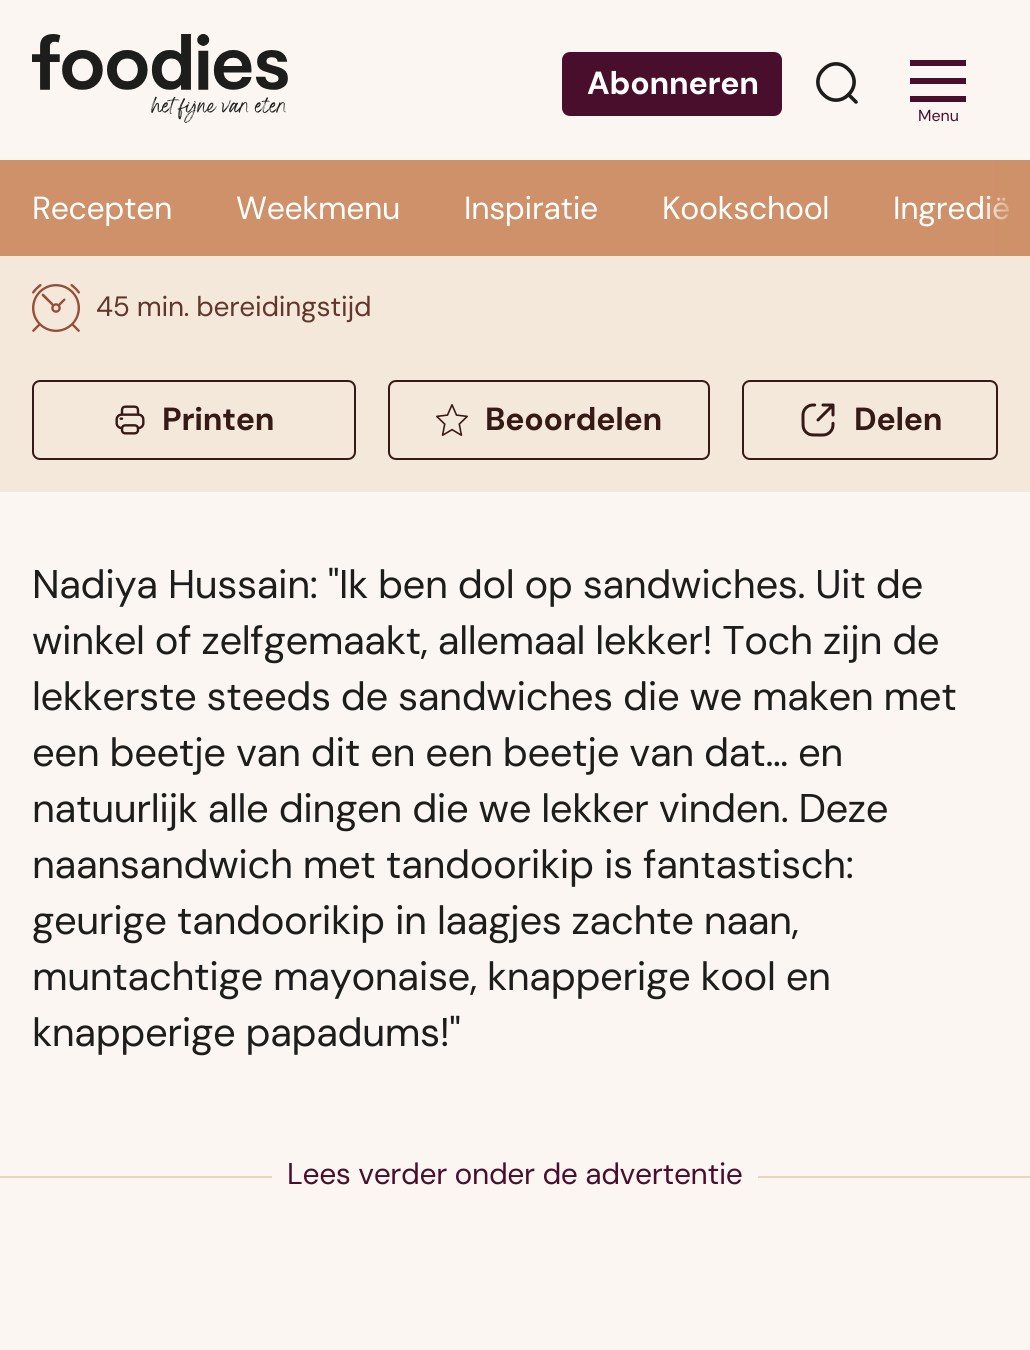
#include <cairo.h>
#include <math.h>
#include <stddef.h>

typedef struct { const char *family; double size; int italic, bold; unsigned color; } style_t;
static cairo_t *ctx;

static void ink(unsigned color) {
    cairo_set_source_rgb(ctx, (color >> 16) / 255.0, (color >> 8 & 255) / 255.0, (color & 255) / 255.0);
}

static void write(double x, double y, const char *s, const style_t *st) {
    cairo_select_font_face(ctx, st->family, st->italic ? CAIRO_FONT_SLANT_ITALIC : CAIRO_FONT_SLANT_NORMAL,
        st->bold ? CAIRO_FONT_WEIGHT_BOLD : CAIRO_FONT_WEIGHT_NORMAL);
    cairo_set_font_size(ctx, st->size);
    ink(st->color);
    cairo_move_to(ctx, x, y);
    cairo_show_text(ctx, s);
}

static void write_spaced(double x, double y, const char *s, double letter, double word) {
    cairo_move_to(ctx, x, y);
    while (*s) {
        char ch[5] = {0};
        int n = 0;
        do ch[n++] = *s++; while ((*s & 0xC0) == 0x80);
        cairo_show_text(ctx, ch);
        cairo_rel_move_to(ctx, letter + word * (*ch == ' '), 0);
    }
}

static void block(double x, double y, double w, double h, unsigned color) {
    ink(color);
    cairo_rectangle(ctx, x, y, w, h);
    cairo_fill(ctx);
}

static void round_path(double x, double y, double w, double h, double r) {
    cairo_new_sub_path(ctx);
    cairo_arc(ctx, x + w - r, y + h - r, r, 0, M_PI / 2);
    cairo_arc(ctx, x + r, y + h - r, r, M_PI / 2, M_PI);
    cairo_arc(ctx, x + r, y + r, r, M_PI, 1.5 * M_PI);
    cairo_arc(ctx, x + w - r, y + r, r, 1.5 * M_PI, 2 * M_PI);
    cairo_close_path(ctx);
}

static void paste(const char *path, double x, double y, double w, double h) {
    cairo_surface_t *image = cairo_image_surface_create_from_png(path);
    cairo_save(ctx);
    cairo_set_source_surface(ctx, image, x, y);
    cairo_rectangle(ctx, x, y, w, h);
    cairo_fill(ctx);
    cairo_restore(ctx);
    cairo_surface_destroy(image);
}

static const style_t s1 = {"DM Sans", 16, 0, 0, 0x490e2c};

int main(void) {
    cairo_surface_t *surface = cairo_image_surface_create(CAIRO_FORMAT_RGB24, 1030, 1350);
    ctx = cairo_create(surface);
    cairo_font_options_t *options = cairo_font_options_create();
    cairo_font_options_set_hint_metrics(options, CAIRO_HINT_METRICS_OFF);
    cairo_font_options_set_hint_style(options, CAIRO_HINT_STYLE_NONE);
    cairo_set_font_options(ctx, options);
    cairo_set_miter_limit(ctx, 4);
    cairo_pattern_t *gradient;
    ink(0xfbf6f1);
    cairo_paint(ctx);
    paste("pic1.png", 32, 34, 256, 89);
    ink(0x490e2c);
    round_path(562, 52, 220, 64, 8);
    cairo_fill(ctx);
    cairo_select_font_face(ctx, "DM Sans", CAIRO_FONT_SLANT_NORMAL, CAIRO_FONT_WEIGHT_BOLD);
    cairo_set_font_size(ctx, 32);
    ink(0xffffff);
    write_spaced(587, 94, "Abonneren", -0.25, 0);
    cairo_new_path(ctx);
    cairo_move_to(ctx, 856, 102);
    cairo_line_to(ctx, 848.5, 94.5);
    cairo_move_to(ctx, 848.5, 94.5);
    cairo_curve_to(ctx, 856, 87.5, 856, 76.5, 848.5, 69.5);
    cairo_curve_to(ctx, 841.5, 62, 830.5, 62, 823.5, 69.5);
    cairo_curve_to(ctx, 816, 76.5, 816, 87.5, 823.5, 94.5);
    cairo_curve_to(ctx, 830.5, 102, 841.5, 102, 848.5, 94.5);
    cairo_close_path(ctx);
    ink(0x1d1d1b);
    cairo_set_line_width(ctx, 3.6);
    cairo_set_line_cap(ctx, CAIRO_LINE_CAP_ROUND);
    cairo_stroke(ctx);
    block(910, 60, 56, 6, 0x490e2c);
    block(910, 78, 56, 6, 0x490e2c);
    block(910, 96, 56, 6, 0x490e2c);
    write(918, 121, "Menu", &s1);
    block(0, 160, 1018, 96, 0xce9169);
    cairo_set_font_size(ctx, 32);
    ink(0xffffff);
    write_spaced(893, 219, "Ingredië", -0.35, 0);
    gradient = cairo_pattern_create_linear(1030, 208, 982, 208);
    cairo_pattern_add_color_stop_rgba(gradient, 0, 0.808, 0.569, 0.412, 1);
    cairo_pattern_add_color_stop_rgba(gradient, 0.25, 0.808, 0.569, 0.412, 1);
    cairo_pattern_add_color_stop_rgba(gradient, 1, 0.808, 0.569, 0.412, 0);
    cairo_set_source(ctx, gradient);
    cairo_pattern_destroy(gradient);
    cairo_rectangle(ctx, 986, 160, 44, 96);
    cairo_fill(ctx);
    ink(0xffffff);
    write_spaced(32, 219, "Recepten", -0.35, 0);
    write_spaced(236, 219, "Weekmenu", -0.35, 0);
    write_spaced(464, 219, "Inspiratie", -0.35, 0);
    write_spaced(662, 219, "Kookschool", -0.35, 0);
    block(0, 256, 1030, 236, 0xf4e8db);
    paste("pic2.png", 32, 284, 48, 48);
    cairo_set_font_size(ctx, 28);
    ink(0x63362b);
    write_spaced(96, 316, "45 min. bereidingstijd", -0.25, 0);
    round_path(33, 381, 322, 78, 7);
    ink(0x351a15);
    cairo_set_line_width(ctx, 2);
    cairo_set_line_cap(ctx, CAIRO_LINE_CAP_BUTT);
    cairo_stroke(ctx);
    paste("pic3.png", 115, 405, 30, 30);
    cairo_select_font_face(ctx, "DM Sans", CAIRO_FONT_SLANT_NORMAL, CAIRO_FONT_WEIGHT_BOLD);
    cairo_set_font_size(ctx, 32);
    write_spaced(162, 430, "Printen", -0.25, 0);
    round_path(389, 381, 320, 78, 7);
    cairo_stroke(ctx);
    paste("pic4.png", 436, 404, 32, 32);
    write_spaced(485, 430, "Beoordelen", -0.25, 0);
    round_path(743, 381, 254, 78, 7);
    cairo_stroke(ctx);
    paste("pic5.png", 801, 403, 34, 34);
    write_spaced(854, 430, "Delen", -0.25, 0);
    cairo_select_font_face(ctx, "DM Sans", CAIRO_FONT_SLANT_NORMAL, CAIRO_FONT_WEIGHT_NORMAL);
    cairo_set_font_size(ctx, 40);
    ink(0x1d1d1b);
    write_spaced(32, 598, "Nadiya Hussain: \"Ik ben dol op sandwiches. Uit de", -0.4, 0);
    write_spaced(32, 654, "winkel of zelfgemaakt, allemaal lekker! Toch zijn de", -0.4, 0);
    write_spaced(32, 710, "lekkerste steeds de sandwiches die we maken met", -0.4, 0);
    write_spaced(32, 766, "een beetje van dit en een beetje van dat… en", -0.4, 0);
    write_spaced(32, 822, "natuurlijk alle dingen die we lekker vinden. Deze", -0.4, 0);
    write_spaced(32, 878, "naansandwich met tandoorikip is fantastisch:", -0.4, 0);
    write_spaced(32, 934, "geurige tandoorikip in laagjes zachte naan,", -0.4, 0);
    write_spaced(32, 990, "muntachtige mayonaise, knapperige kool en", -0.4, 0);
    write_spaced(32, 1046, "knapperige papadums!\"", -0.4, 0);
    block(0, 1176, 272, 2, 0xead4be);
    cairo_set_font_size(ctx, 30);
    ink(0x490e2c);
    write_spaced(287, 1184, "Lees verder onder de advertentie", -0.35, 0);
    block(758, 1176, 272, 2, 0xead4be);
    cairo_surface_write_to_png(surface, "screenshot.png");
    cairo_font_options_destroy(options);
    cairo_destroy(ctx);
    cairo_surface_destroy(surface);
    return 0;
}
